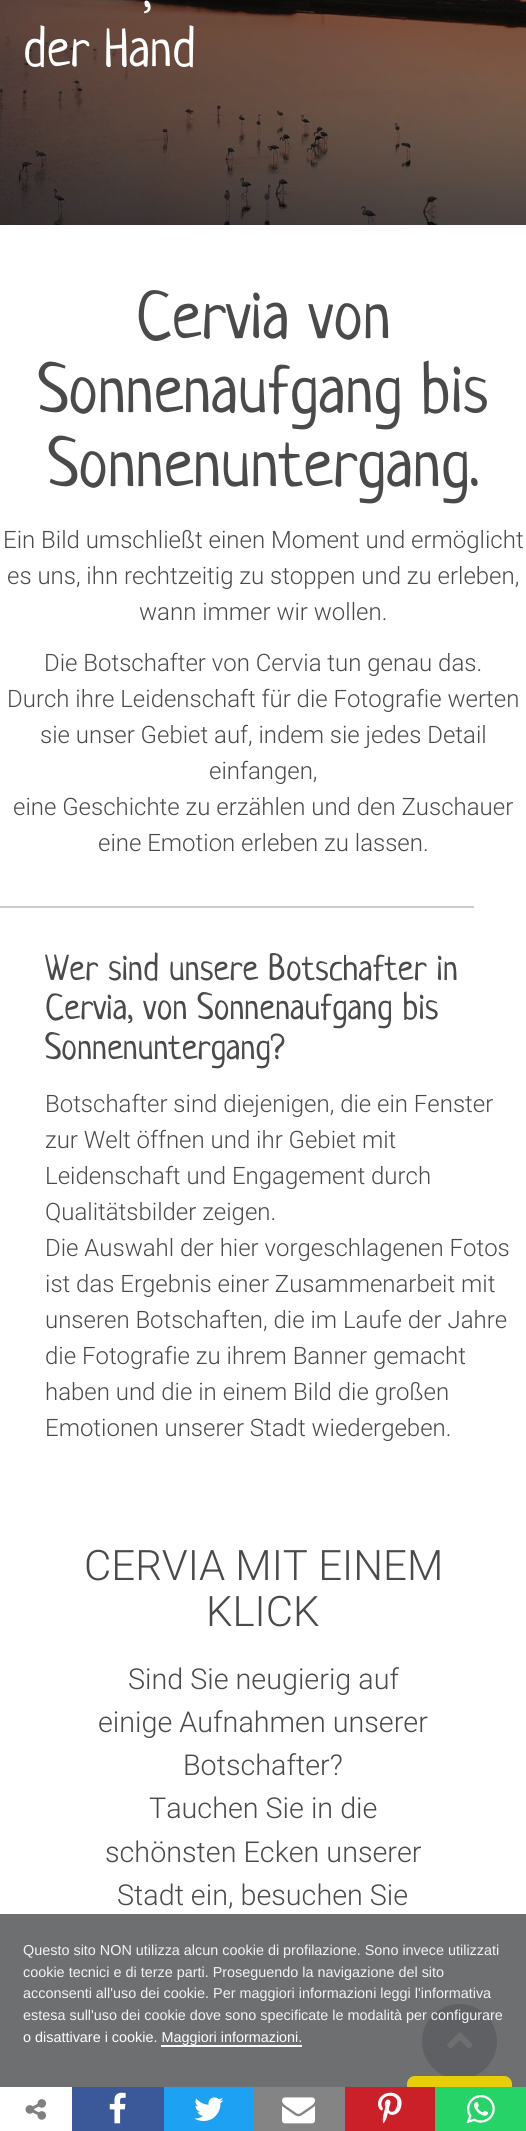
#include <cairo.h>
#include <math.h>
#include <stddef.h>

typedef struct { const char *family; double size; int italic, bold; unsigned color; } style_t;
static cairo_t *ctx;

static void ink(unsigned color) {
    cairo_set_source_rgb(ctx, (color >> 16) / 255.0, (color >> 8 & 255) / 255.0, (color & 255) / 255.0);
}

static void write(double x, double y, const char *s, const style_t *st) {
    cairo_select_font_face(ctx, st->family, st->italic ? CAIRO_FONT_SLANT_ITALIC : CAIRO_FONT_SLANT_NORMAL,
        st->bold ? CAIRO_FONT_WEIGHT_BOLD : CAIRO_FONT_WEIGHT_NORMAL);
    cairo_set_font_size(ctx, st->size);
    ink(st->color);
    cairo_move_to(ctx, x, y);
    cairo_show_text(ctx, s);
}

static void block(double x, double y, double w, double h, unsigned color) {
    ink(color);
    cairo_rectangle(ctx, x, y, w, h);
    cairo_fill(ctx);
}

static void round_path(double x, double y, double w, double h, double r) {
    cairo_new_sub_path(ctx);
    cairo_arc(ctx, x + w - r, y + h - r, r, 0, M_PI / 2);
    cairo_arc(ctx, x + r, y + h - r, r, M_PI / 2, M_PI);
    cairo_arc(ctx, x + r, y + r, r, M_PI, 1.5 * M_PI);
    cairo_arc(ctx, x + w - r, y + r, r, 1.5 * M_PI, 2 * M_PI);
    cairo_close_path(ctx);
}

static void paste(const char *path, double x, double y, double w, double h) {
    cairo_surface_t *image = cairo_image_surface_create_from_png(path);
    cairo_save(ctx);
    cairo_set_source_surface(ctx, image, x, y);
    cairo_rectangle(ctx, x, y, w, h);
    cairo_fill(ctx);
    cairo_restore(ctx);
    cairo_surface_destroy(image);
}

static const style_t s1 = {"Neucha", 53, 0, 0, 0xffffff};
static const style_t s2 = {"Neucha", 67.25, 0, 0, 0x4a4a4a};
static const style_t s3 = {"Roboto Light", 24, 0, 0, 0x4a4a4a};
static const style_t s4 = {"Neucha", 36, 0, 0, 0x4a4a4a};
static const style_t s5 = {"Roboto Light", 42, 0, 0, 0x4a4a4a};
static const style_t s6 = {"Roboto Light", 28.75, 0, 0, 0x4a4a4a};
static const style_t s7 = {"Liberation Sans", 14.4, 0, 0, 0xf3f3f4};
static const style_t s8 = {"Liberation Sans", 14.4, 0, 0, 0xffffff};

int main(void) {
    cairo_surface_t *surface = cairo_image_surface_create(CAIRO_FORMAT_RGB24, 526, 2131);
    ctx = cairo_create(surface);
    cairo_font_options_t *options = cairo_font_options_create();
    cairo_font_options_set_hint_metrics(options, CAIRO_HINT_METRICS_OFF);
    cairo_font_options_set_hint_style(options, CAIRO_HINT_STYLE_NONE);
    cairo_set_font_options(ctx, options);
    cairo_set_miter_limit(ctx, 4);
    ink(0xffffff);
    cairo_paint(ctx);
    block(0, 1914, 526, 173, 0x6e6f71);
    paste("pic1.png", 0, 0, 526, 225);
    write(143, 7, ",", &s1);
    write(23, 66, "der Hand", &s1);
    write(136, 338, "Cervia von", &s2);
    write(38, 412, "Sonnenaufgang bis", &s2);
    write(48, 486, "Sonnenuntergang.", &s2);
    write(3, 548, "Ein Bild umschließt einen Moment und ermöglicht", &s3);
    write(7, 584, "es uns, ihn rechtzeitig zu stoppen und zu erleben,", &s3);
    write(139, 620, "wann immer wir wollen.", &s3);
    write(44, 671, "Die Botschafter von Cervia tun genau das.", &s3);
    write(7, 707, "Durch ihre Leidenschaft für die Fotografie werten", &s3);
    write(40, 743, "sie unser Gebiet auf, indem sie jedes Detail", &s3);
    write(209, 779, "einfangen,", &s3);
    write(13, 815, "eine Geschichte zu erzählen und den Zuschauer", &s3);
    write(98, 851, "eine Emotion erleben zu lassen.", &s3);
    block(0, 906, 474, 2, 0xcccccc);
    write(45, 980, "Wer sind unsere Botschafter in", &s4);
    write(45, 1019, "Cervia, von Sonnenaufgang bis", &s4);
    write(45, 1059, "Sonnenuntergang?", &s4);
    write(45, 1112, "Botschafter sind diejenigen, die ein Fenster", &s3);
    write(45, 1148, "zur Welt öffnen und ihr Gebiet mit", &s3);
    write(45, 1184, "Leidenschaft und Engagement durch", &s3);
    write(45, 1220, "Qualitätsbilder zeigen.", &s3);
    write(45, 1256, "Die Auswahl der hier vorgeschlagenen Fotos", &s3);
    write(45, 1292, "ist das Ergebnis einer Zusammenarbeit mit", &s3);
    write(45, 1328, "unseren Botschaften, die im Laufe der Jahre", &s3);
    write(45, 1364, "die Fotografie zu ihrem Banner gemacht", &s3);
    write(45, 1400, "haben und die in einem Bild die großen", &s3);
    write(45, 1436, "Emotionen unserer Stadt wiedergeben.", &s3);
    write(84, 1580, "CERVIA MIT EINEM", &s5);
    write(206, 1626, "KLICK", &s5);
    write(128, 1689, "Sind Sie neugierig auf", &s6);
    write(98, 1732, "einige Aufnahmen unserer", &s6);
    write(183, 1775, "Botschafter?", &s6);
    write(149, 1818, "Tauchen Sie in die", &s6);
    write(105, 1862, "schönsten Ecken unserer", &s6);
    write(117, 1905, "Stadt ein, besuchen Sie", &s6);
    ink(0x5f6063);
    cairo_new_path(ctx);
    cairo_arc(ctx, 459.5, 2041.5, 37.5, 0, 2 * M_PI);
    cairo_fill(ctx);
    paste("pic2.png", 447, 2032, 26, 17);
    write(23, 1955, "Questo sito NON utilizza alcun cookie di profilazione. Sono invece utilizzati", &s7);
    write(23, 1977, "cookie tecnici e di terze parti. Proseguendo la navigazione del sito", &s7);
    write(23, 1998, "acconsenti all'uso dei cookie. Per maggiori informazioni leggi l'informativa", &s7);
    write(23, 2020, "estesa sull'uso dei cookie dove sono specificate le modalità per configurare", &s7);
    write(23, 2042, "o disattivare i cookie. Maggiori informazioni.", &s8);
    block(161, 2045, 141, 2, 0xffffff);
    cairo_set_source_rgba(ctx, 0.945, 0.839, 0, 0.92);
    round_path(407, 2076, 105, 41, 8);
    cairo_fill(ctx);
    paste("pic3.png", 25, 2099, 22, 21);
    block(72, 2087, 92, 44, 0x3b5998);
    paste("pic4.png", 109, 2092, 17, 32);
    block(164, 2087, 90, 44, 0x1da1f2);
    paste("pic5.png", 194, 2097, 30, 24);
    block(254, 2087, 91, 44, 0x848484);
    paste("pic6.png", 282, 2097, 33, 27);
    block(345, 2087, 90, 44, 0xcb2027);
    paste("pic7.png", 378, 2092, 24, 32);
    block(435, 2087, 91, 44, 0x25d366);
    paste("pic8.png", 466, 2095, 29, 29);
    cairo_surface_write_to_png(surface, "screenshot.png");
    cairo_font_options_destroy(options);
    cairo_destroy(ctx);
    cairo_surface_destroy(surface);
    return 0;
}
